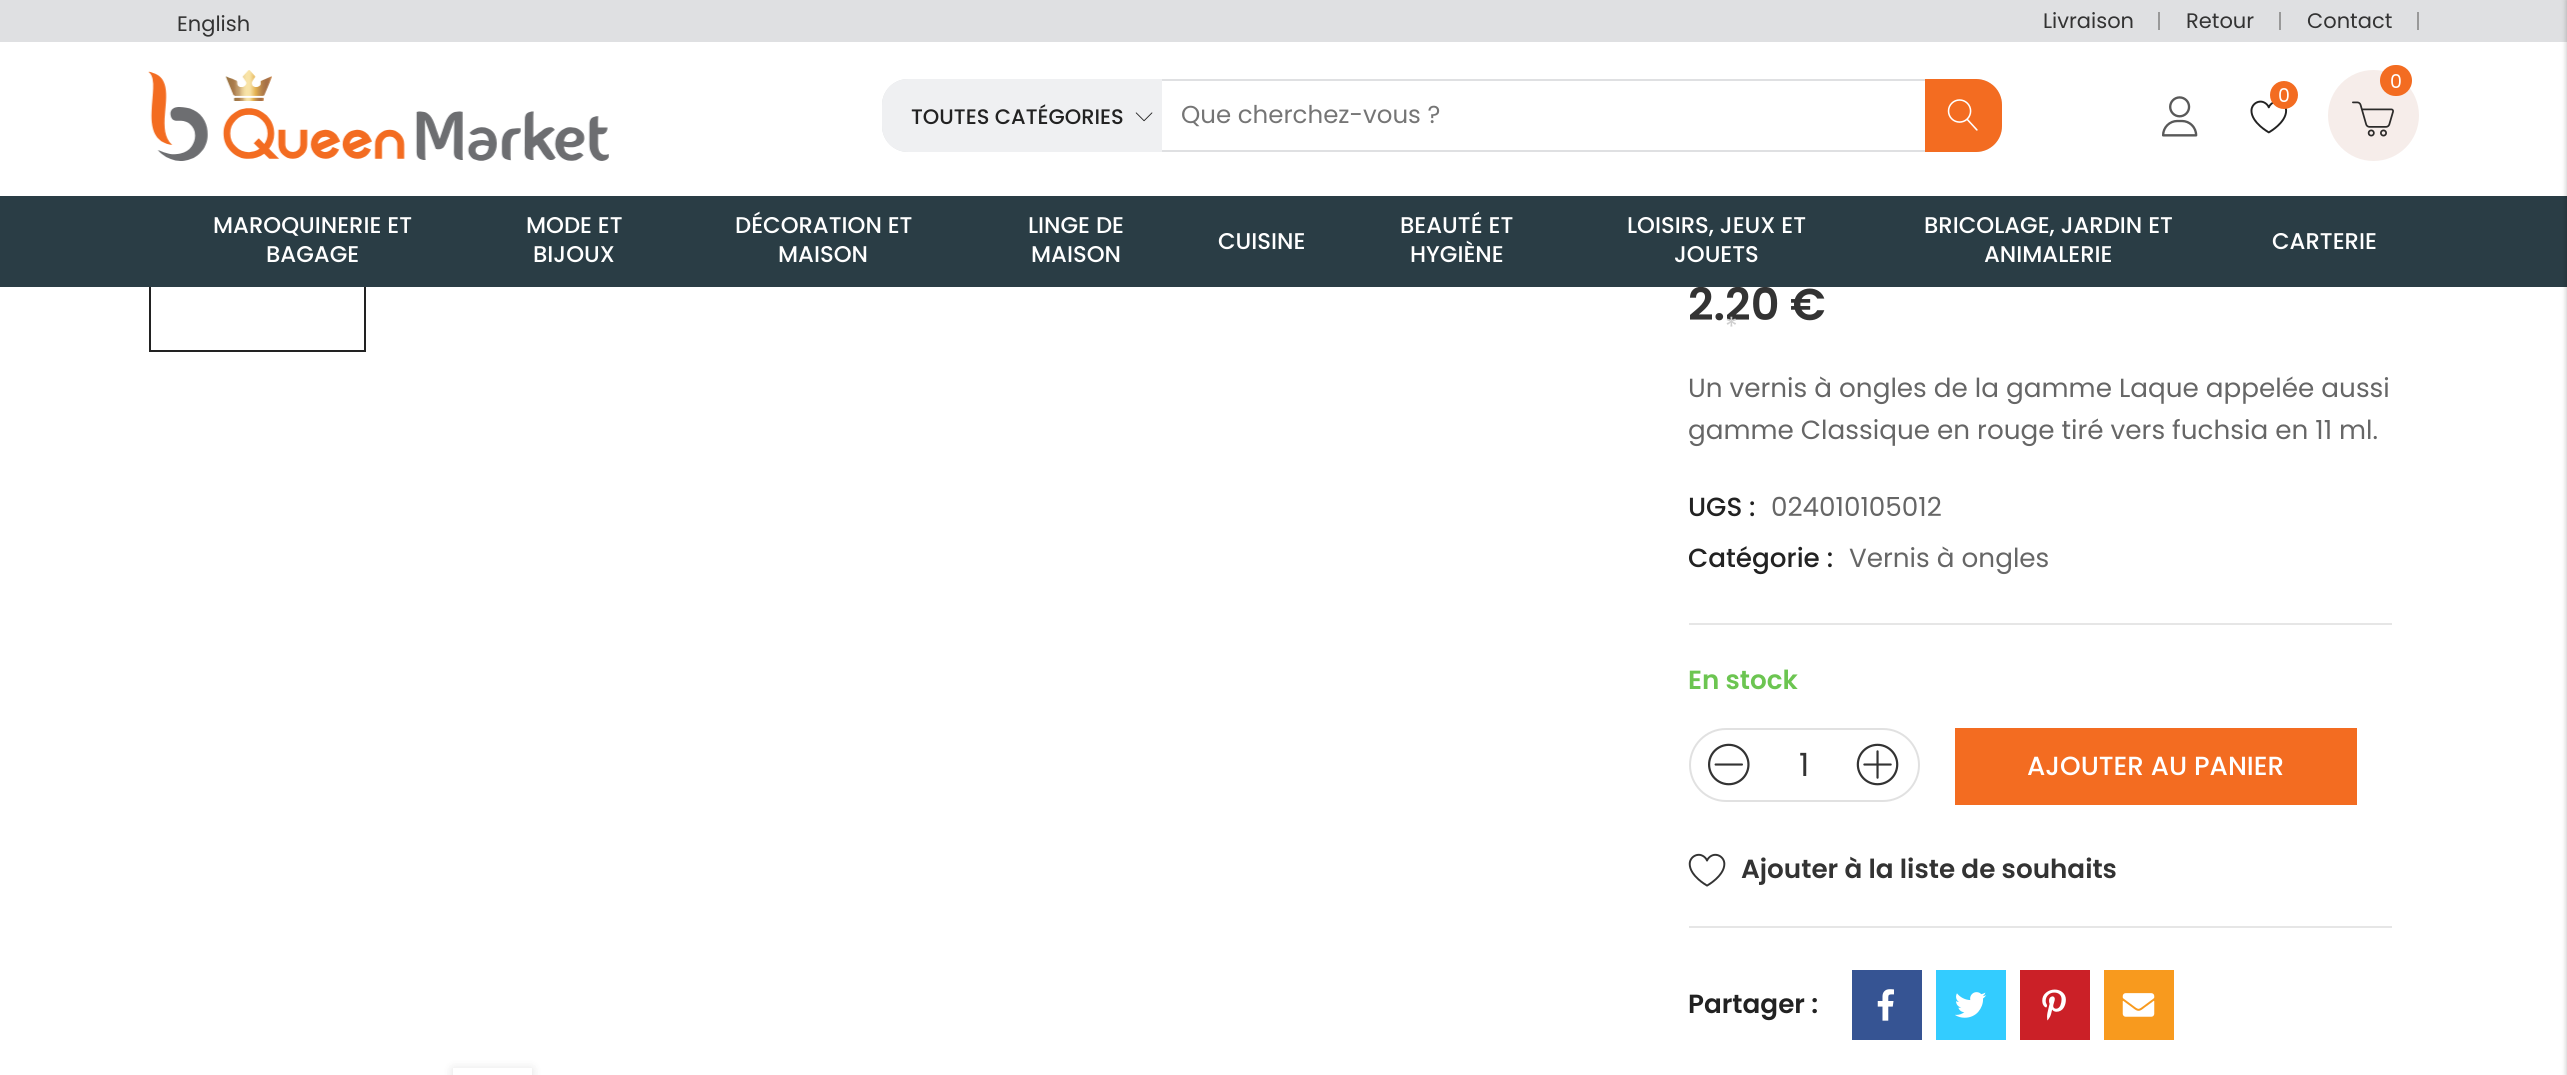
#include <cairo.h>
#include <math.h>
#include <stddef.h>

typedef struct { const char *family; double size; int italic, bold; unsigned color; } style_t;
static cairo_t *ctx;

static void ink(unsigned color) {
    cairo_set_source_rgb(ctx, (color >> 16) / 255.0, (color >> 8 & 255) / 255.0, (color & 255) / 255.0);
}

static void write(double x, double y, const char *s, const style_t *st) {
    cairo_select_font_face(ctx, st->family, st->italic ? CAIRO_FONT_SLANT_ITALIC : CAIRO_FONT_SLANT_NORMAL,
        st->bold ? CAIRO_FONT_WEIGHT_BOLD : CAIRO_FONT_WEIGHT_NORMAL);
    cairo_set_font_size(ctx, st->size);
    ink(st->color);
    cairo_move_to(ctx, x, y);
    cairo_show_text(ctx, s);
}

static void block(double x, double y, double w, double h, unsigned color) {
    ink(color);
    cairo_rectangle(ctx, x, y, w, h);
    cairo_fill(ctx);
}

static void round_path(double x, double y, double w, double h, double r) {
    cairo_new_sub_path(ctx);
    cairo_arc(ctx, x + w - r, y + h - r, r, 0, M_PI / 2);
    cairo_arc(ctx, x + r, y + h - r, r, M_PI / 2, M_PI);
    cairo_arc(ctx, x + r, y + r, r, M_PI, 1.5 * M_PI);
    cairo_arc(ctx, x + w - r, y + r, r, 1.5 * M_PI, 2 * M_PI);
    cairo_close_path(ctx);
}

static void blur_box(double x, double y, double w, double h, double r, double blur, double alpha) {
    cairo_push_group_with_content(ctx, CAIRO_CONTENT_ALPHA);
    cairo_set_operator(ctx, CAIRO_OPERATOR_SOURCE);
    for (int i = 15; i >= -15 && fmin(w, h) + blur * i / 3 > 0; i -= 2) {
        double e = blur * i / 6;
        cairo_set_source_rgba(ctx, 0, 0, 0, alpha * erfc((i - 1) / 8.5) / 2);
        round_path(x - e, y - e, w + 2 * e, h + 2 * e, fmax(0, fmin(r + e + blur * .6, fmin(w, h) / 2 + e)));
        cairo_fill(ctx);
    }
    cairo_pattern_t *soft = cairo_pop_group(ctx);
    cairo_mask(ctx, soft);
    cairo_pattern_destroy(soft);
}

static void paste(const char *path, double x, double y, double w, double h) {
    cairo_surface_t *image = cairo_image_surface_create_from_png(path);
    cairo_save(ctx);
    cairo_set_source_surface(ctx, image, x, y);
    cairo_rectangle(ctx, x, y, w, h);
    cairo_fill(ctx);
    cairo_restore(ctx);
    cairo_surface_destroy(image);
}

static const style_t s1 = {"Poppins", 21, 0, 0, 0x333333};
static const style_t s2 = {"Poppins Medium", 21, 0, 0, 0x222222};
static const style_t s3 = {"Poppins", 24.5, 0, 0, 0x757575};
static const style_t s4 = {"Poppins", 19, 0, 0, 0xffffff};
static const style_t s5 = {"Poppins SemiBold", 44.5, 0, 0, 0x333333};
static const style_t s6 = {"Poppins", 26.25, 0, 0, 0xcecece};
static const style_t s7 = {"Poppins Medium", 22.75, 0, 0, 0xffffff};
static const style_t s8 = {"Poppins", 26.25, 0, 0, 0x666666};
static const style_t s9 = {"Poppins Medium", 26.25, 0, 0, 0x222222};
static const style_t s10 = {"Poppins SemiBold", 26.25, 0, 0, 0x6cc551};
static const style_t s11 = {"Poppins", 32, 0, 0, 0x333333};
static const style_t s12 = {"Poppins Medium", 26.25, 0, 0, 0xffffff};
static const style_t s13 = {"Poppins SemiBold", 26.25, 0, 0, 0x333333};
static const style_t s14 = {"Poppins SemiBold", 26.25, 0, 0, 0x222222};

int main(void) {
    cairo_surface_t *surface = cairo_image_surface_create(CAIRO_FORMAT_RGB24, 2567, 1075);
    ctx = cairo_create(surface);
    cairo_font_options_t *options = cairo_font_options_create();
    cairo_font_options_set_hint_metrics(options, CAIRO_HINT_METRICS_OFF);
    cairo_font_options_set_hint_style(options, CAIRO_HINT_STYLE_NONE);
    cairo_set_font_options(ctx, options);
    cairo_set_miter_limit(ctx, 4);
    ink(0xffffff);
    cairo_paint(ctx);
    block(0, 0, 2567, 42, 0xdfe0e2);
    write(177, 31, "English", &s1);
    write(2043, 28, "Livraison", &s1);
    block(2158, 12, 2, 18, 0x999999);
    write(2186, 28, "Retour", &s1);
    block(2279, 12, 2, 18, 0x999999);
    write(2307, 28, "Contact", &s1);
    block(2417, 12, 2, 18, 0x999999);
    cairo_rectangle(ctx, 150, 139, 215, 212);
    ink(0x222222);
    cairo_stroke(ctx);
    block(149, 138, 217, 58, 0xffffff);
    paste("pic1.png", 148, 70, 461, 91);
    round_path(883, 80, 1118, 71, 25);
    ink(0xdfe0e2);
    cairo_stroke(ctx);
    ink(0xeff0f2);
    cairo_new_path(ctx);
    cairo_move_to(ctx, 908, 79);
    cairo_line_to(ctx, 1162, 79);
    cairo_line_to(ctx, 1162, 152);
    cairo_line_to(ctx, 908, 152);
    cairo_curve_to(ctx, 893.5, 152, 882, 140.5, 882, 126);
    cairo_line_to(ctx, 882, 105);
    cairo_curve_to(ctx, 882, 90.5, 893.5, 79, 908, 79);
    cairo_close_path(ctx);
    cairo_fill(ctx);
    write(911, 124, "TOUTES CATÉGORIES", &s2);
    paste("pic2.png", 1135, 112, 18, 10);
    write(1181, 123, "Que cherchez-vous ?", &s3);
    ink(0xf36c21);
    cairo_new_path(ctx);
    cairo_move_to(ctx, 1925, 79);
    cairo_line_to(ctx, 1976, 79);
    cairo_curve_to(ctx, 1990.5, 79, 2002, 90.5, 2002, 105);
    cairo_line_to(ctx, 2002, 126);
    cairo_curve_to(ctx, 2002, 140.5, 1990.5, 152, 1976, 152);
    cairo_line_to(ctx, 1925, 152);
    cairo_close_path(ctx);
    cairo_fill(ctx);
    paste("pic3.png", 1947, 99, 31, 32);
    ink(0xf6edea);
    cairo_arc(ctx, 2373.5, 115.5, 45.5, 0, 2 * M_PI);
    cairo_fill(ctx);
    ink(0xf36c21);
    round_path(2380, 65, 32, 31, 15.5);
    cairo_fill(ctx);
    write(2390, 88, "0", &s4);
    paste("pic4.png", 2352, 101, 42, 36);
    paste("pic5.png", 2250, 100, 38, 34);
    ink(0xf36c21);
    cairo_arc(ctx, 2284, 95, 14, 0, 2 * M_PI);
    cairo_fill(ctx);
    write(2278, 102, "0", &s4);
    paste("pic6.png", 2162, 96, 36, 41);
    write(1688, 320, "2.20 €", &s5);
    write(1725, 336, "*", &s6);
    block(0, 196, 2567, 91, 0x2a3d45);
    write(213, 233, "MAROQUINERIE ET", &s7);
    write(266, 262, "BAGAGE", &s7);
    write(526, 233, "MODE ET", &s7);
    write(533, 262, "BIJOUX", &s7);
    write(735, 233, "DÉCORATION ET", &s7);
    write(778, 262, "MAISON", &s7);
    write(1028, 233, "LINGE DE", &s7);
    write(1031, 262, "MAISON", &s7);
    write(1218, 249, "CUISINE", &s7);
    write(1400, 233, "BEAUTÉ ET", &s7);
    write(1410, 262, "HYGIÈNE", &s7);
    write(1627, 233, "LOISIRS, JEUX ET", &s7);
    write(1674, 262, "JOUETS", &s7);
    write(1924, 233, "BRICOLAGE, JARDIN ET", &s7);
    write(1984, 262, "ANIMALERIE", &s7);
    write(2272, 249, "CARTERIE", &s7);
    ink(0x333333);
    blur_box(453, 1069, 79, 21, 0, 5, 0.15);
    block(453, 1068, 79, 7, 0xffffff);
    write(1688, 397, "Un vernis à ongles de la gamme Laque appelée aussi", &s8);
    write(1688, 439, "gamme Classique en rouge tiré vers fuchsia en 11 ml.", &s8);
    block(1689, 623, 703, 2, 0xe6e6e6);
    write(1688, 516, "UGS :", &s9);
    write(1771, 516, "024010105012", &s8);
    write(1688, 567, "Catégorie :", &s9);
    write(1849, 567, "Vernis à ongles", &s8);
    write(1688, 689, "En stock", &s10);
    round_path(1690, 729, 229, 72, 36);
    ink(0xe1e1e1);
    cairo_stroke(ctx);
    paste("pic7.png", 1708, 743, 42, 43);
    write(1799, 776, "1", &s11);
    paste("pic8.png", 1856, 743, 43, 43);
    block(1955, 728, 402, 77, 0xf36c21);
    write(2027, 775, "AJOUTER AU PANIER", &s12);
    paste("pic9.png", 1688, 853, 38, 34);
    write(1741, 878, "Ajouter à la liste de souhaits", &s13);
    block(1689, 926, 703, 2, 0xe6e6e6);
    write(1688, 1013, "Partager :", &s14);
    block(1852, 970, 70, 70, 0x365493);
    paste("pic10.png", 1877, 989, 17, 32);
    block(1936, 970, 70, 70, 0x33ccff);
    paste("pic11.png", 1955, 992, 32, 26);
    block(2020, 970, 70, 70, 0xcb2027);
    paste("pic12.png", 2042, 989, 24, 32);
    block(2104, 970, 70, 70, 0xf89a1e);
    paste("pic13.png", 2122, 993, 33, 24);
    ink(0x000000);
    blur_box(2566, 0, 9, 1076, 0, 2.5, 0.2);
    cairo_surface_write_to_png(surface, "screenshot.png");
    cairo_font_options_destroy(options);
    cairo_destroy(ctx);
    cairo_surface_destroy(surface);
    return 0;
}
